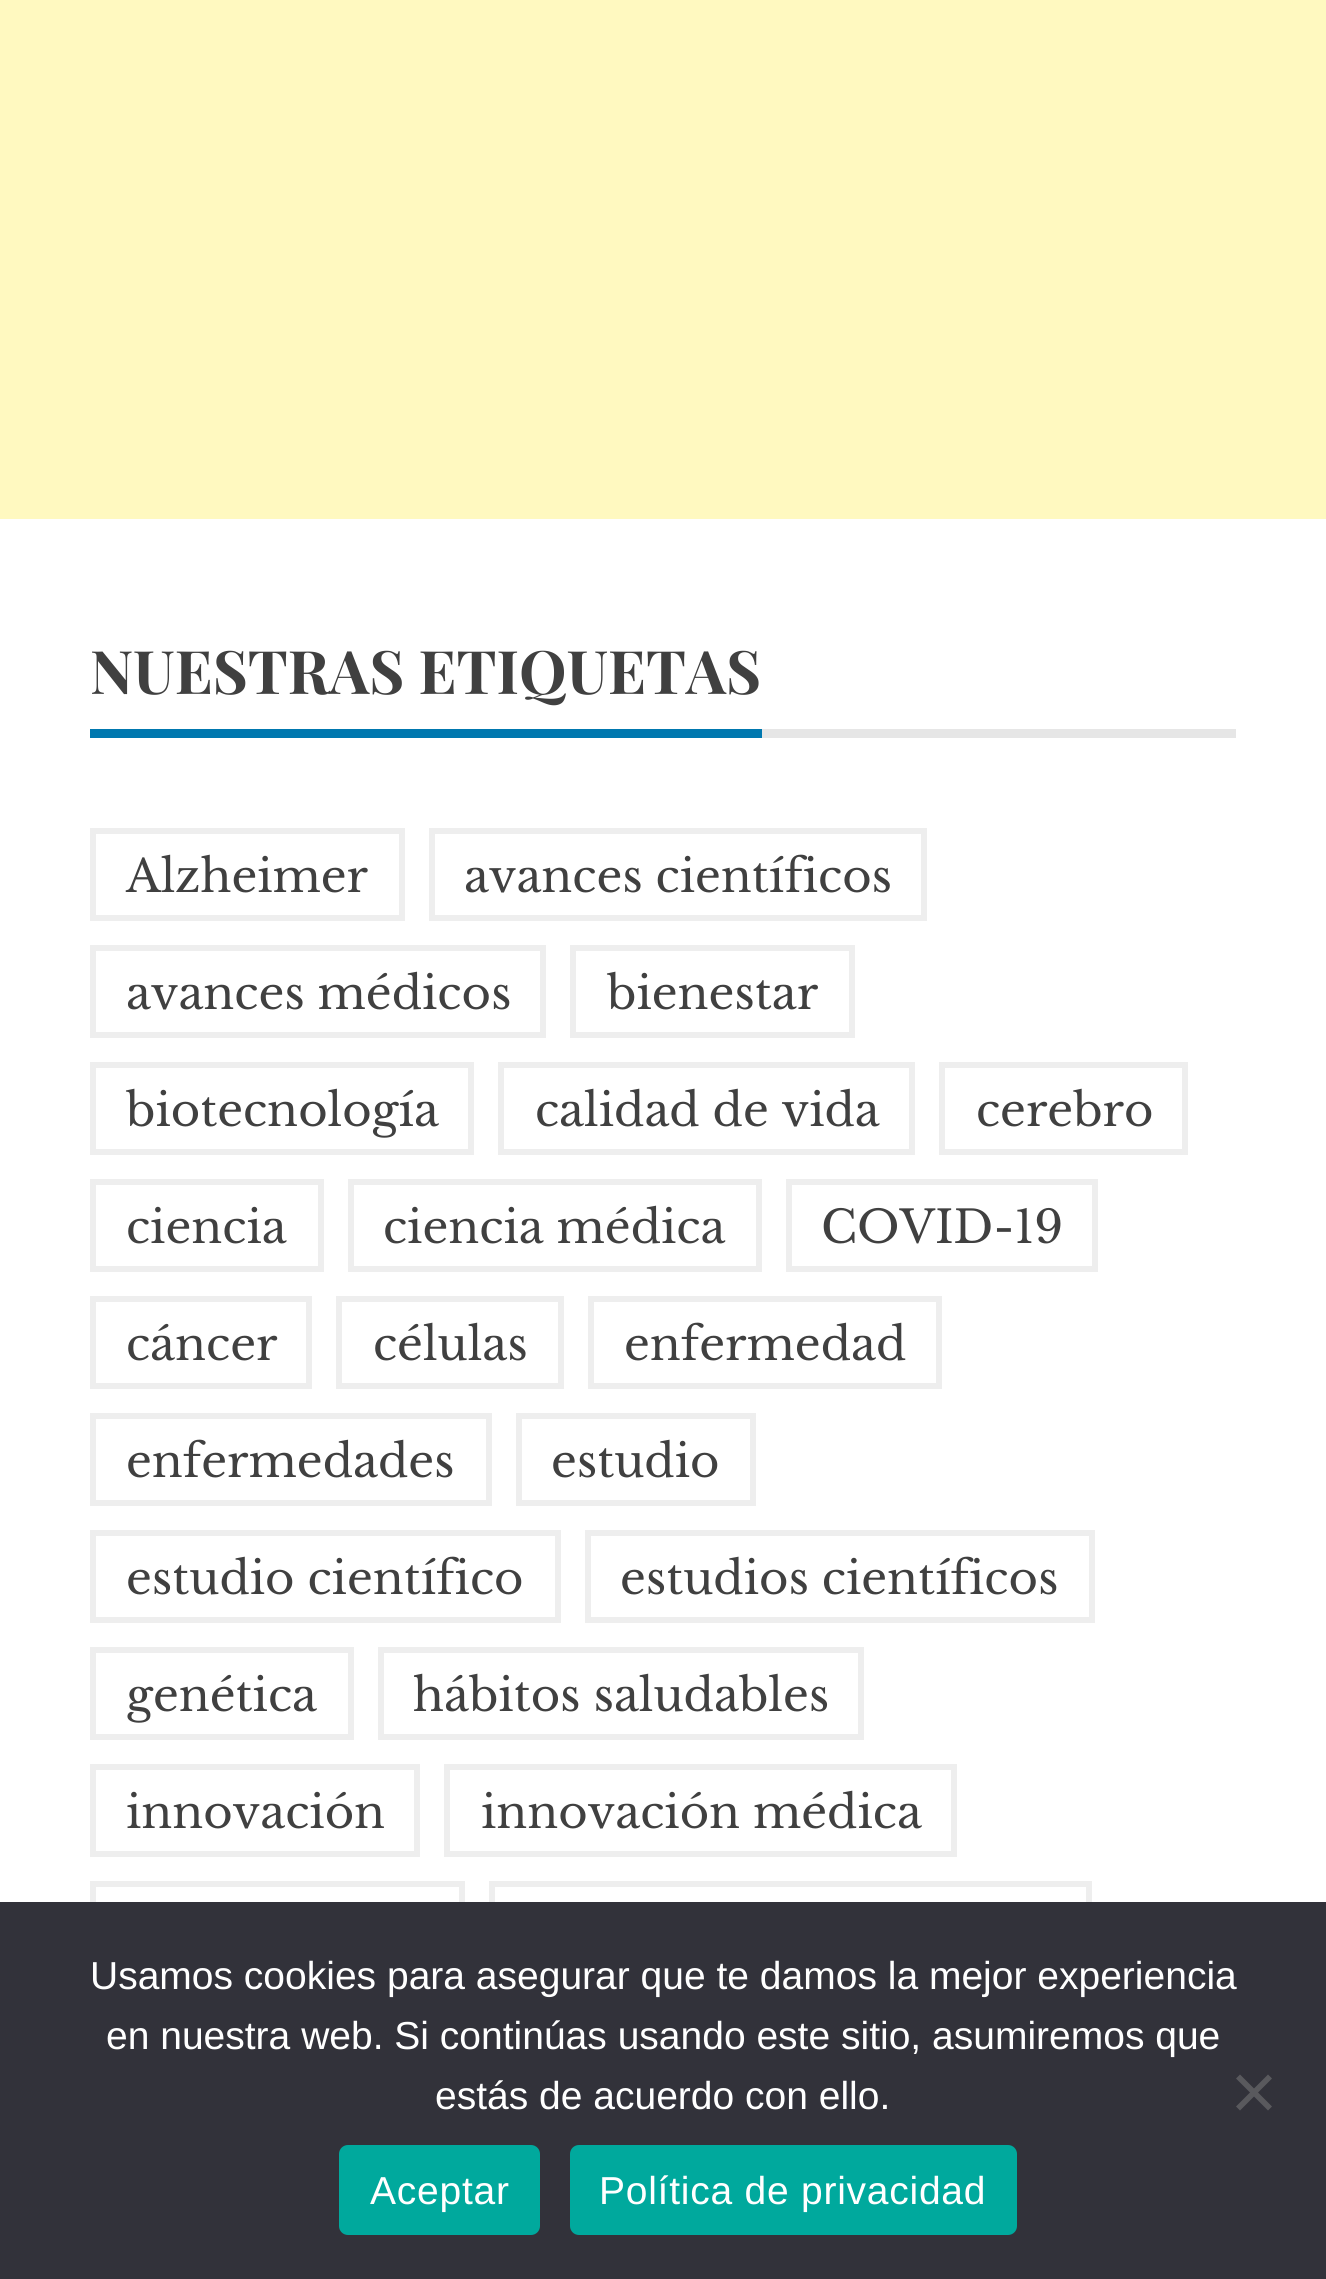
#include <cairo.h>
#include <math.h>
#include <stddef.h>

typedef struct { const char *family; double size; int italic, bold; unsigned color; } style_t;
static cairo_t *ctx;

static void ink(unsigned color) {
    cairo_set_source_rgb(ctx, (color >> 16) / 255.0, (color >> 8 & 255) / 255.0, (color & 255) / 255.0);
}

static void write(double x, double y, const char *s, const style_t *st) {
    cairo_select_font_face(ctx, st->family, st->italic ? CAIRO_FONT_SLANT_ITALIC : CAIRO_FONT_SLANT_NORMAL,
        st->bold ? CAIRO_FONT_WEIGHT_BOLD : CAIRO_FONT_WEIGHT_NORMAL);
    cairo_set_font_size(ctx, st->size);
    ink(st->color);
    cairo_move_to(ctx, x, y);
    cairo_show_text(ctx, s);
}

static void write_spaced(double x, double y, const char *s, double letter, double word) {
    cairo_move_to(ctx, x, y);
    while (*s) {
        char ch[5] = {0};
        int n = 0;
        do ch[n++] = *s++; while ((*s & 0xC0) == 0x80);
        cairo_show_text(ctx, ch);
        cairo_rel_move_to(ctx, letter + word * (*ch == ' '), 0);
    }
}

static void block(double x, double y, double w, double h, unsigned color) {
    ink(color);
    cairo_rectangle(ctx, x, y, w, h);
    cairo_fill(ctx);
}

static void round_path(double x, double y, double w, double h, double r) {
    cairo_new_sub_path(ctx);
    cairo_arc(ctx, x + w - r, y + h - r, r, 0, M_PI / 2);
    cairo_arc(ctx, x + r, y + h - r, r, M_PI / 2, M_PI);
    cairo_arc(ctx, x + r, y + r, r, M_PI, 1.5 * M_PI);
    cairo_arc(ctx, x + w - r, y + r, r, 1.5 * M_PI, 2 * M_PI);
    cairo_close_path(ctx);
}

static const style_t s1 = {"Playfair Display", 60, 0, 1, 0x404040};
static const style_t s2 = {"Libre Baskerville", 45, 0, 0, 0x404040};
static const style_t s3 = {"Liberation Sans", 39, 0, 0, 0xffffff};

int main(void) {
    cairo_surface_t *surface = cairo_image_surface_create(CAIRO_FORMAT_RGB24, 1326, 2279);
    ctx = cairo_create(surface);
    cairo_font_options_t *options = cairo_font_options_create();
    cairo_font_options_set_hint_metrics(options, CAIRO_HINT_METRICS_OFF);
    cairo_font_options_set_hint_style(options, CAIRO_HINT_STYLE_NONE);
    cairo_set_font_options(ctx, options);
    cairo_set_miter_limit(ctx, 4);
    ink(0xffffff);
    cairo_paint(ctx);
    block(0, 0, 1326, 519, 0xfff9c0);
    block(762, 729, 474, 9, 0xe6e6e6);
    write(90, 694, "NUESTRAS ETIQUETAS", &s1);
    block(90, 729, 672, 9, 0x0078af);
    cairo_rectangle(ctx, 93, 831, 309, 87);
    ink(0xeeeeee);
    cairo_set_line_width(ctx, 6);
    cairo_stroke(ctx);
    write(126, 892, "Alzheimer", &s2);
    cairo_rectangle(ctx, 432, 831, 492, 87);
    ink(0xeeeeee);
    cairo_stroke(ctx);
    write(464, 892, "avances científicos", &s2);
    cairo_rectangle(ctx, 93, 948, 450, 87);
    ink(0xeeeeee);
    cairo_stroke(ctx);
    write(126, 1009, "avances médicos", &s2);
    cairo_rectangle(ctx, 573, 948, 279, 87);
    ink(0xeeeeee);
    cairo_stroke(ctx);
    write(607, 1009, "bienestar", &s2);
    cairo_rectangle(ctx, 93, 1065, 378, 87);
    ink(0xeeeeee);
    cairo_stroke(ctx);
    write(126, 1126, "biotecnología", &s2);
    cairo_rectangle(ctx, 501, 1065, 411, 87);
    ink(0xeeeeee);
    cairo_stroke(ctx);
    write(535, 1126, "calidad de vida", &s2);
    cairo_rectangle(ctx, 942, 1065, 243, 87);
    ink(0xeeeeee);
    cairo_stroke(ctx);
    write(976, 1126, "cerebro", &s2);
    cairo_rectangle(ctx, 93, 1182, 228, 87);
    ink(0xeeeeee);
    cairo_stroke(ctx);
    write(126, 1243, "ciencia", &s2);
    cairo_rectangle(ctx, 351, 1182, 408, 87);
    ink(0xeeeeee);
    cairo_stroke(ctx);
    write(383, 1243, "ciencia médica", &s2);
    cairo_rectangle(ctx, 789, 1182, 306, 87);
    ink(0xeeeeee);
    cairo_stroke(ctx);
    write(821, 1243, "COVID-19", &s2);
    cairo_rectangle(ctx, 93, 1299, 216, 87);
    ink(0xeeeeee);
    cairo_stroke(ctx);
    write(126, 1360, "cáncer", &s2);
    cairo_rectangle(ctx, 339, 1299, 222, 87);
    ink(0xeeeeee);
    cairo_stroke(ctx);
    write(373, 1360, "células", &s2);
    cairo_rectangle(ctx, 591, 1299, 348, 87);
    ink(0xeeeeee);
    cairo_stroke(ctx);
    write(624, 1360, "enfermedad", &s2);
    cairo_rectangle(ctx, 93, 1416, 396, 87);
    ink(0xeeeeee);
    cairo_stroke(ctx);
    write(126, 1477, "enfermedades", &s2);
    cairo_rectangle(ctx, 519, 1416, 234, 87);
    ink(0xeeeeee);
    cairo_stroke(ctx);
    write(551, 1477, "estudio", &s2);
    cairo_rectangle(ctx, 93, 1533, 465, 87);
    ink(0xeeeeee);
    cairo_stroke(ctx);
    write(126, 1594, "estudio científico", &s2);
    cairo_rectangle(ctx, 588, 1533, 504, 87);
    ink(0xeeeeee);
    cairo_stroke(ctx);
    write(620, 1594, "estudios científicos", &s2);
    cairo_rectangle(ctx, 93, 1650, 258, 87);
    ink(0xeeeeee);
    cairo_stroke(ctx);
    write(126, 1711, "genética", &s2);
    cairo_rectangle(ctx, 381, 1650, 480, 87);
    ink(0xeeeeee);
    cairo_stroke(ctx);
    write(413, 1711, "hábitos saludables", &s2);
    cairo_rectangle(ctx, 93, 1767, 324, 87);
    ink(0xeeeeee);
    cairo_stroke(ctx);
    write(126, 1828, "innovación", &s2);
    cairo_rectangle(ctx, 447, 1767, 507, 87);
    ink(0xeeeeee);
    cairo_stroke(ctx);
    write(481, 1828, "innovación médica", &s2);
    cairo_rectangle(ctx, 93, 1884, 369, 87);
    ink(0xeeeeee);
    cairo_stroke(ctx);
    cairo_rectangle(ctx, 492, 1884, 597, 87);
    cairo_stroke(ctx);
    block(0, 1902, 1326, 377, 0x32323a);
    write(90, 1989, "Usamos cookies para asegurar que te damos la mejor experiencia", &s3);
    write(106, 2049, "en nuestra web. Si continúas usando este sitio, asumiremos que", &s3);
    write(435, 2109, "estás de acuerdo con ello.", &s3);
    ink(0x59595d);
    cairo_new_path(ctx);
    cairo_move_to(ctx, 1268, 2074.5);
    cairo_line_to(ctx, 1272, 2078.5);
    cairo_line_to(ctx, 1240, 2110.5);
    cairo_line_to(ctx, 1236, 2106.5);
    cairo_close_path(ctx);
    cairo_fill(ctx);
    cairo_new_path(ctx);
    cairo_move_to(ctx, 1236, 2078.5);
    cairo_line_to(ctx, 1240, 2074.5);
    cairo_line_to(ctx, 1272, 2106.5);
    cairo_line_to(ctx, 1268, 2110.5);
    cairo_close_path(ctx);
    cairo_fill(ctx);
    ink(0x00a99d);
    round_path(339, 2145, 201, 90, 9);
    cairo_fill(ctx);
    ink(0xffffff);
    write_spaced(370, 2204, "Aceptar", 0.75, 0);
    ink(0x00a99d);
    round_path(570, 2145, 447, 90, 9);
    cairo_fill(ctx);
    ink(0xffffff);
    write_spaced(599, 2204, "Política de privacidad", 0.75, 0);
    cairo_surface_write_to_png(surface, "screenshot.png");
    cairo_font_options_destroy(options);
    cairo_destroy(ctx);
    cairo_surface_destroy(surface);
    return 0;
}
